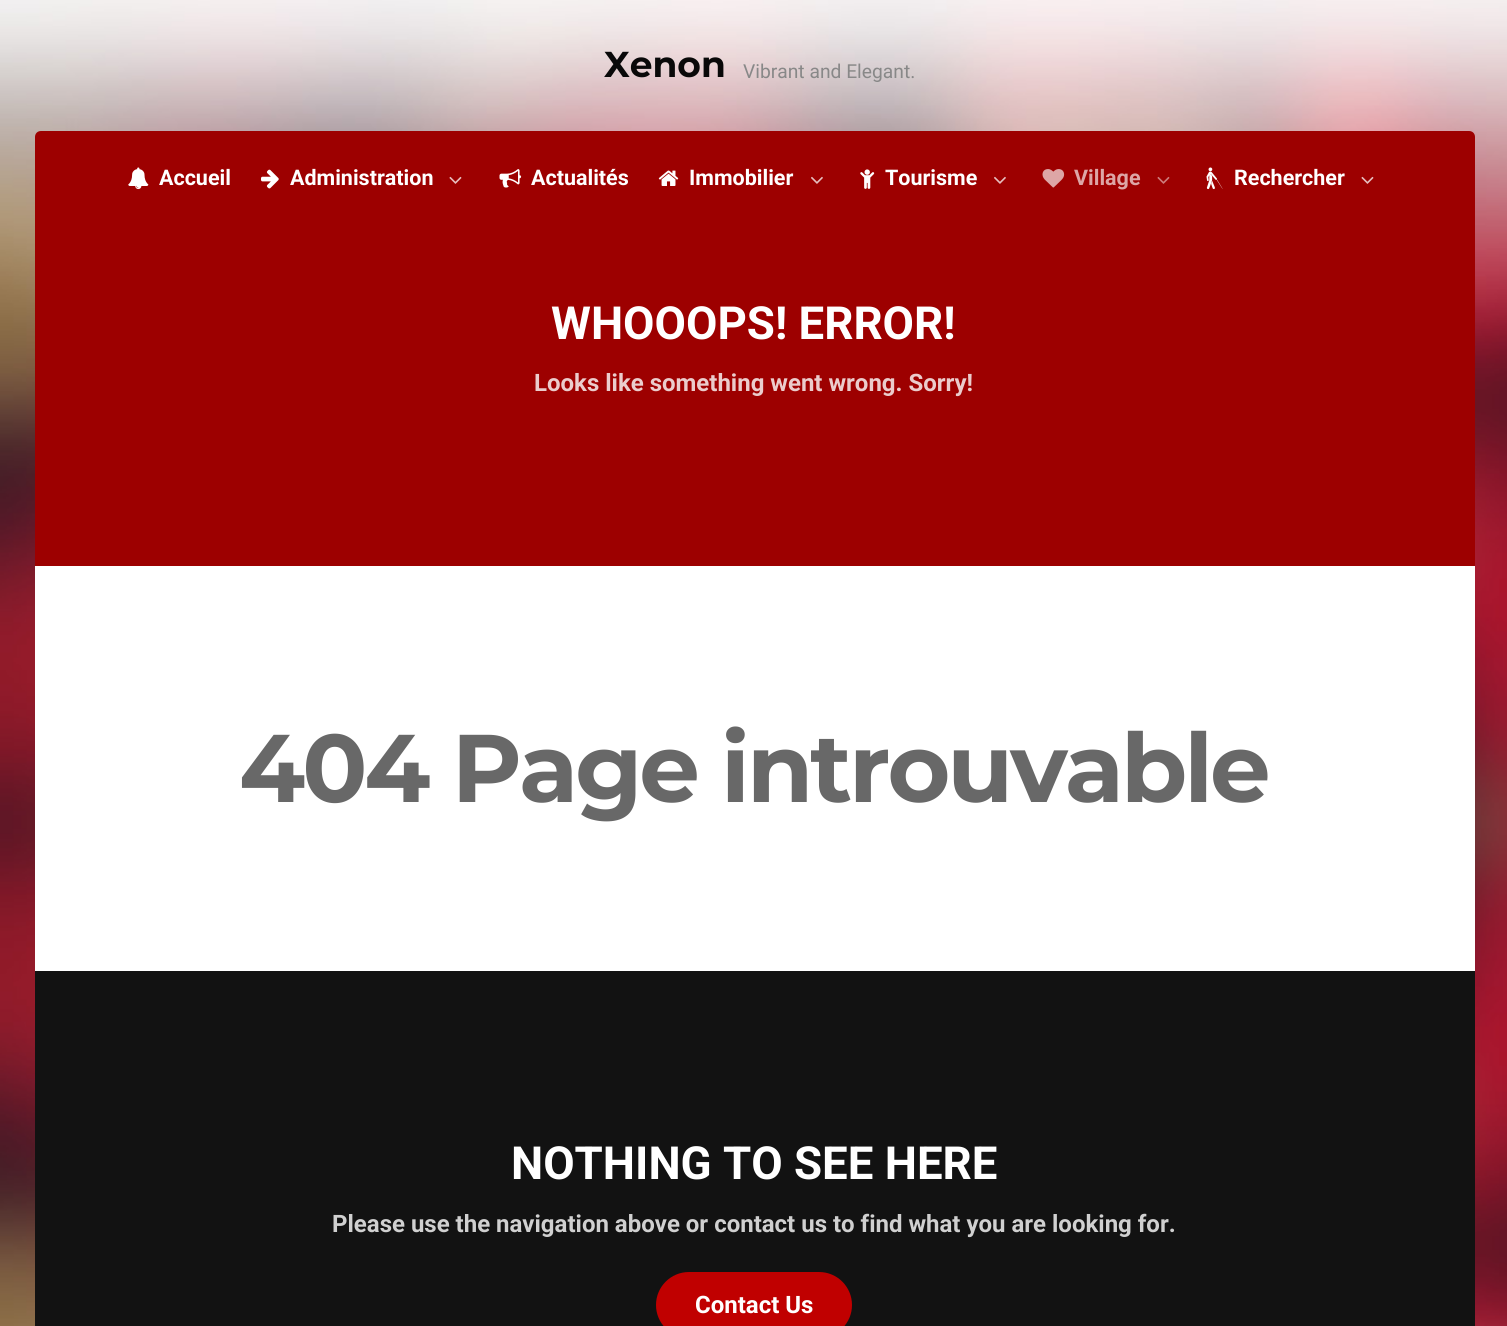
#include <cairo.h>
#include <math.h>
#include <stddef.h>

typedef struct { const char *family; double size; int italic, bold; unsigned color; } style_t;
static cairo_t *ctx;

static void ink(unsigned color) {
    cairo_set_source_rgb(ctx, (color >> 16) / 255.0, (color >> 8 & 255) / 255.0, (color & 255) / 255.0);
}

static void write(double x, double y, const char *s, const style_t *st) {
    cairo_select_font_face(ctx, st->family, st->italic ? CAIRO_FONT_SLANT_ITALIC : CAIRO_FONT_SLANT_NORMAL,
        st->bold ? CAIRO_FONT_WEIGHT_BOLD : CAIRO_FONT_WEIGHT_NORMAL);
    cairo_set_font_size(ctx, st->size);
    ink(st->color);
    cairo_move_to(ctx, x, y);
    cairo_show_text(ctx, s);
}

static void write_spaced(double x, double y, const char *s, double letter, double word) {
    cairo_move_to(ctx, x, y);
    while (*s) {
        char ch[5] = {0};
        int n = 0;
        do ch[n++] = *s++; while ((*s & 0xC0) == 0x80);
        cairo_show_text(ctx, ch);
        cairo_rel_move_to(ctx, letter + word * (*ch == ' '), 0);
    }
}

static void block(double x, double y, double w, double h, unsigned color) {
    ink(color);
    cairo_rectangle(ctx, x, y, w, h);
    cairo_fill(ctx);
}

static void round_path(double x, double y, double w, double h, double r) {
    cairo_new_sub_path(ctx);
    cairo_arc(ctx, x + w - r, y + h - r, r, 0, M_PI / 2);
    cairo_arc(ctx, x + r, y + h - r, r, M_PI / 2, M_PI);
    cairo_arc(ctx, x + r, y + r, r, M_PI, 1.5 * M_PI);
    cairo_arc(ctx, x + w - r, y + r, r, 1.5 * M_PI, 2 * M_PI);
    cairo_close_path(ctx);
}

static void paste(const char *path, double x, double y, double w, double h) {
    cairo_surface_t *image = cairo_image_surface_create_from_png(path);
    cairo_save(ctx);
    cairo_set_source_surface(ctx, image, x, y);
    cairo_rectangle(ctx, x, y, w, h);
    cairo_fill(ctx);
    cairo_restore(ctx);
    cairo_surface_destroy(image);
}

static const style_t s1 = {"Montserrat", 36, 0, 1, 0x090909};
static const style_t s2 = {"Roboto", 19.25, 0, 0, 0x888888};
static const style_t s3 = {"Roboto", 21.5, 0, 1, 0xffffff};
static const style_t s4 = {"Roboto", 21.5, 0, 1, 0xdda6a6};
static const style_t s5 = {"Roboto", 45.6, 0, 1, 0xffffff};
static const style_t s6 = {"Roboto", 24, 0, 1, 0xebcccc};
static const style_t s7 = {"Roboto", 24, 0, 1, 0xd0d0d0};
static const style_t s8 = {"Roboto", 24, 0, 1, 0xffffff};

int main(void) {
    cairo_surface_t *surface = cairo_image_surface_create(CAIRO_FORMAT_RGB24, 1507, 1326);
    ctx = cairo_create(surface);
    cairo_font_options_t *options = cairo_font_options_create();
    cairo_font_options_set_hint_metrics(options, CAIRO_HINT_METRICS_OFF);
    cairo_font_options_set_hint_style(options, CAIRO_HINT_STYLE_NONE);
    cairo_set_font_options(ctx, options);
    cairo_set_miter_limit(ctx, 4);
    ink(0xffffff);
    cairo_paint(ctx);
    paste("pic1.png", 0, 0, 1507, 1326);
    write(604, 77, "Xenon", &s1);
    write(743, 78, "Vibrant and Elegant.", &s2);
    ink(0x9d0000);
    cairo_new_path(ctx);
    cairo_move_to(ctx, 41, 131);
    cairo_line_to(ctx, 1469, 131);
    cairo_curve_to(ctx, 1472.5, 131, 1475, 133.5, 1475, 137);
    cairo_line_to(ctx, 1475, 566);
    cairo_line_to(ctx, 35, 566);
    cairo_line_to(ctx, 35, 137);
    cairo_curve_to(ctx, 35, 133.5, 37.5, 131, 41, 131);
    cairo_close_path(ctx);
    cairo_fill(ctx);
    paste("pic2.png", 128, 167, 21, 23);
    write(159, 185, "Accueil", &s3);
    paste("pic3.png", 261, 169, 18, 20);
    write(290, 185, "Administration", &s3);
    paste("pic4.png", 449, 176, 13, 8);
    paste("pic5.png", 499, 169, 23, 19);
    write(531, 185, "Actualités", &s3);
    paste("pic6.png", 658, 170, 21, 16);
    write(689, 185, "Immobilier", &s3);
    paste("pic7.png", 811, 176, 12, 8);
    paste("pic8.png", 860, 169, 15, 20);
    write(885, 185, "Tourisme", &s3);
    paste("pic7.png", 994, 176, 12, 8);
    paste("pic9.png", 1042, 169, 23, 19);
    write(1074, 185, "Village", &s4);
    paste("pic10.png", 1157, 176, 13, 8);
    paste("pic11.png", 1206, 167, 17, 23);
    write(1234, 185, "Rechercher", &s3);
    paste("pic4.png", 1361, 176, 13, 8);
    write(551, 339, "WHOOOPS! ERROR!", &s5);
    write(534, 391, "Looks like something went wrong. Sorry!", &s6);
    block(35, 566, 1440, 405, 0xffffff);
    cairo_select_font_face(ctx, "Montserrat", CAIRO_FONT_SLANT_NORMAL, CAIRO_FONT_WEIGHT_BOLD);
    cairo_set_font_size(ctx, 96);
    ink(0x686868);
    write_spaced(239, 802, "404 Page introuvable", -3, 0);
    block(35, 971, 1440, 355, 0x121212);
    write(511, 1179, "NOTHING TO SEE HERE", &s5);
    write(332, 1232, "Please use the navigation above or contact us to find what you are looking for.", &s7);
    ink(0xc00000);
    round_path(656, 1272, 196, 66, 33);
    cairo_fill(ctx);
    write(695, 1313, "Contact Us", &s8);
    cairo_surface_write_to_png(surface, "screenshot.png");
    cairo_font_options_destroy(options);
    cairo_destroy(ctx);
    cairo_surface_destroy(surface);
    return 0;
}
